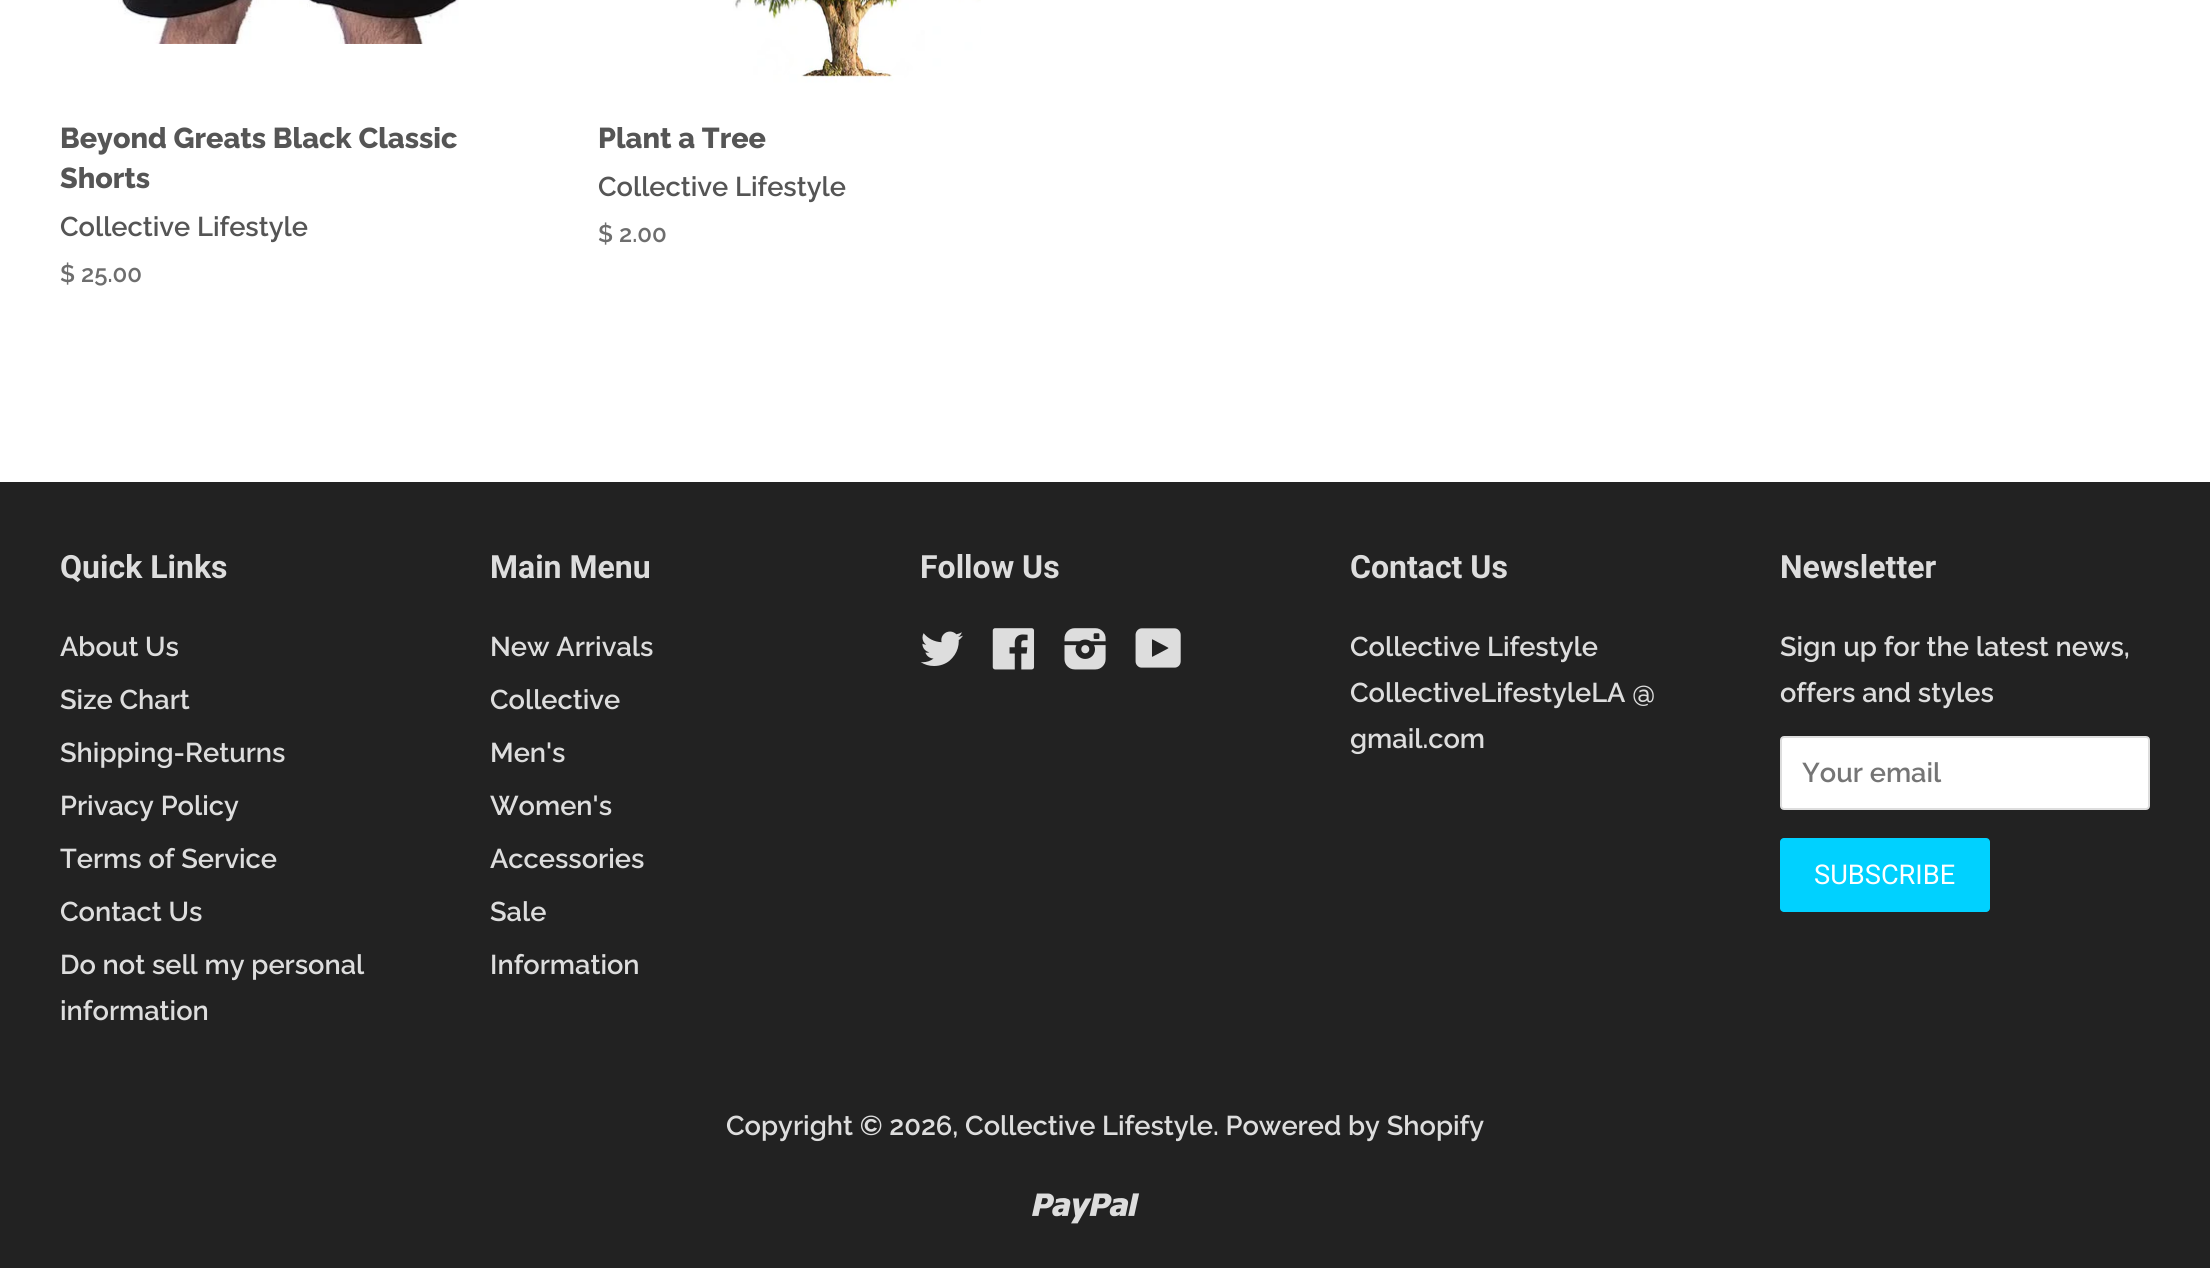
#include <cairo.h>
#include <math.h>
#include <stddef.h>

typedef struct { const char *family; double size; int italic, bold; unsigned color; } style_t;
static cairo_t *ctx;

static void ink(unsigned color) {
    cairo_set_source_rgb(ctx, (color >> 16) / 255.0, (color >> 8 & 255) / 255.0, (color & 255) / 255.0);
}

static void write(double x, double y, const char *s, const style_t *st) {
    cairo_select_font_face(ctx, st->family, st->italic ? CAIRO_FONT_SLANT_ITALIC : CAIRO_FONT_SLANT_NORMAL,
        st->bold ? CAIRO_FONT_WEIGHT_BOLD : CAIRO_FONT_WEIGHT_NORMAL);
    cairo_set_font_size(ctx, st->size);
    ink(st->color);
    cairo_move_to(ctx, x, y);
    cairo_show_text(ctx, s);
}

static void block(double x, double y, double w, double h, unsigned color) {
    ink(color);
    cairo_rectangle(ctx, x, y, w, h);
    cairo_fill(ctx);
}

static void round_path(double x, double y, double w, double h, double r) {
    cairo_new_sub_path(ctx);
    cairo_arc(ctx, x + w - r, y + h - r, r, 0, M_PI / 2);
    cairo_arc(ctx, x + r, y + h - r, r, M_PI / 2, M_PI);
    cairo_arc(ctx, x + r, y + r, r, M_PI, 1.5 * M_PI);
    cairo_arc(ctx, x + w - r, y + r, r, 1.5 * M_PI, 2 * M_PI);
    cairo_close_path(ctx);
}

static void paste(const char *path, double x, double y, double w, double h) {
    cairo_surface_t *image = cairo_image_surface_create_from_png(path);
    cairo_save(ctx);
    cairo_set_source_surface(ctx, image, x, y);
    cairo_rectangle(ctx, x, y, w, h);
    cairo_fill(ctx);
    cairo_restore(ctx);
    cairo_surface_destroy(image);
}

static const style_t s1 = {"Raleway ExtraBold", 28.75, 0, 0, 0x555555};
static const style_t s2 = {"Raleway SemiBold", 27.2, 0, 0, 0x555555};
static const style_t s3 = {"Raleway SemiBold", 24, 0, 0, 0x6e6e6e};
static const style_t s4 = {"Roboto", 32, 0, 1, 0xdddddd};
static const style_t s5 = {"Raleway SemiBold", 27.2, 0, 0, 0xdddddd};
static const style_t s6 = {"Raleway SemiBold", 27.2, 0, 0, 0x757575};
static const style_t s7 = {"Roboto", 27.2, 0, 0, 0xffffff};

int main(void) {
    cairo_surface_t *surface = cairo_image_surface_create(CAIRO_FORMAT_RGB24, 2210, 1268);
    ctx = cairo_create(surface);
    cairo_font_options_t *options = cairo_font_options_create();
    cairo_font_options_set_hint_metrics(options, CAIRO_HINT_METRICS_OFF);
    cairo_font_options_set_hint_style(options, CAIRO_HINT_STYLE_NONE);
    cairo_set_font_options(ctx, options);
    cairo_set_miter_limit(ctx, 4);
    ink(0xffffff);
    cairo_paint(ctx);
    paste("pic1.png", 118, 0, 341, 44);
    write(60, 148, "Beyond Greats Black Classic", &s1);
    write(60, 188, "Shorts", &s1);
    write(60, 236, "Collective Lifestyle", &s2);
    write(60, 282, "$ 25.00", &s3);
    paste("pic2.png", 733, 0, 248, 83);
    write(598, 148, "Plant a Tree", &s1);
    write(598, 196, "Collective Lifestyle", &s2);
    write(598, 242, "$ 2.00", &s3);
    block(0, 482, 2210, 786, 0x222222);
    write(60, 578, "Quick Links", &s4);
    write(60, 656, "About Us", &s5);
    write(60, 709, "Size Chart", &s5);
    write(60, 762, "Shipping-Returns", &s5);
    write(60, 815, "Privacy Policy", &s5);
    write(60, 868, "Terms of Service", &s5);
    write(60, 921, "Contact Us", &s5);
    write(60, 974, "Do not sell my personal", &s5);
    write(60, 1020, "information", &s5);
    write(490, 578, "Main Menu", &s4);
    write(490, 656, "New Arrivals", &s5);
    write(490, 709, "Collective", &s5);
    write(490, 762, "Men's", &s5);
    write(490, 815, "Women's", &s5);
    write(490, 868, "Accessories", &s5);
    write(490, 921, "Sale", &s5);
    write(490, 974, "Information", &s5);
    write(920, 578, "Follow Us", &s4);
    paste("pic3.png", 920, 631, 43, 35);
    paste("pic4.png", 992, 628, 43, 42);
    paste("pic5.png", 1064, 628, 42, 42);
    paste("pic6.png", 1135, 628, 46, 40);
    write(1350, 578, "Contact Us", &s4);
    write(1350, 656, "Collective Lifestyle", &s5);
    write(1350, 702, "CollectiveLifestyleLA @", &s5);
    write(1350, 748, "gmail.com", &s5);
    write(1780, 578, "Newsletter", &s4);
    write(1780, 656, "Sign up for the latest news,", &s5);
    write(1780, 702, "offers and styles", &s5);
    ink(0xffffff);
    round_path(1781, 737, 368, 72, 3);
    cairo_fill_preserve(ctx);
    ink(0xdddddd);
    cairo_stroke(ctx);
    write(1802, 782, "Your email", &s6);
    ink(0x00d1ff);
    round_path(1780, 838, 210, 74, 4);
    cairo_fill(ctx);
    write(1814, 884, "SUBSCRIBE", &s7);
    write(726, 1135, "Copyright © 2026, Collective Lifestyle. Powered by Shopify", &s5);
    paste("pic7.png", 1032, 1193, 108, 31);
    cairo_surface_write_to_png(surface, "screenshot.png");
    cairo_font_options_destroy(options);
    cairo_destroy(ctx);
    cairo_surface_destroy(surface);
    return 0;
}
